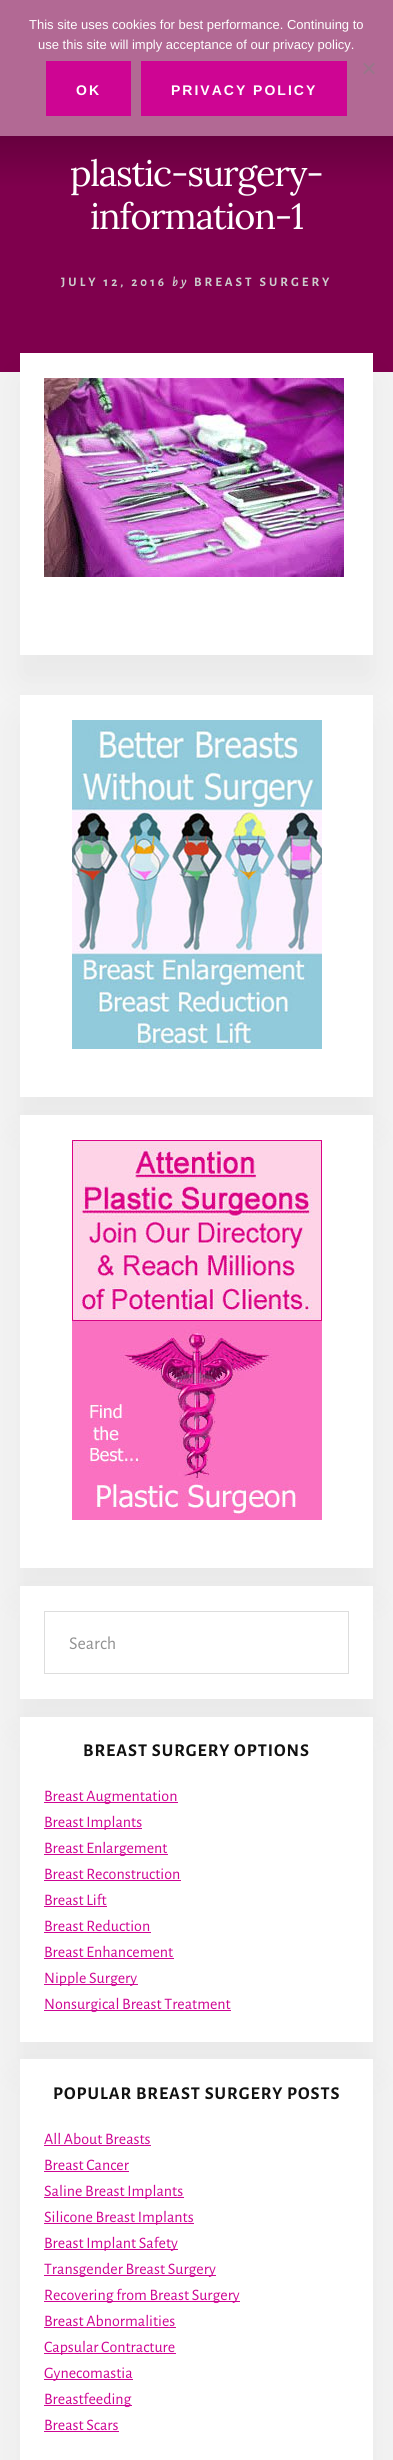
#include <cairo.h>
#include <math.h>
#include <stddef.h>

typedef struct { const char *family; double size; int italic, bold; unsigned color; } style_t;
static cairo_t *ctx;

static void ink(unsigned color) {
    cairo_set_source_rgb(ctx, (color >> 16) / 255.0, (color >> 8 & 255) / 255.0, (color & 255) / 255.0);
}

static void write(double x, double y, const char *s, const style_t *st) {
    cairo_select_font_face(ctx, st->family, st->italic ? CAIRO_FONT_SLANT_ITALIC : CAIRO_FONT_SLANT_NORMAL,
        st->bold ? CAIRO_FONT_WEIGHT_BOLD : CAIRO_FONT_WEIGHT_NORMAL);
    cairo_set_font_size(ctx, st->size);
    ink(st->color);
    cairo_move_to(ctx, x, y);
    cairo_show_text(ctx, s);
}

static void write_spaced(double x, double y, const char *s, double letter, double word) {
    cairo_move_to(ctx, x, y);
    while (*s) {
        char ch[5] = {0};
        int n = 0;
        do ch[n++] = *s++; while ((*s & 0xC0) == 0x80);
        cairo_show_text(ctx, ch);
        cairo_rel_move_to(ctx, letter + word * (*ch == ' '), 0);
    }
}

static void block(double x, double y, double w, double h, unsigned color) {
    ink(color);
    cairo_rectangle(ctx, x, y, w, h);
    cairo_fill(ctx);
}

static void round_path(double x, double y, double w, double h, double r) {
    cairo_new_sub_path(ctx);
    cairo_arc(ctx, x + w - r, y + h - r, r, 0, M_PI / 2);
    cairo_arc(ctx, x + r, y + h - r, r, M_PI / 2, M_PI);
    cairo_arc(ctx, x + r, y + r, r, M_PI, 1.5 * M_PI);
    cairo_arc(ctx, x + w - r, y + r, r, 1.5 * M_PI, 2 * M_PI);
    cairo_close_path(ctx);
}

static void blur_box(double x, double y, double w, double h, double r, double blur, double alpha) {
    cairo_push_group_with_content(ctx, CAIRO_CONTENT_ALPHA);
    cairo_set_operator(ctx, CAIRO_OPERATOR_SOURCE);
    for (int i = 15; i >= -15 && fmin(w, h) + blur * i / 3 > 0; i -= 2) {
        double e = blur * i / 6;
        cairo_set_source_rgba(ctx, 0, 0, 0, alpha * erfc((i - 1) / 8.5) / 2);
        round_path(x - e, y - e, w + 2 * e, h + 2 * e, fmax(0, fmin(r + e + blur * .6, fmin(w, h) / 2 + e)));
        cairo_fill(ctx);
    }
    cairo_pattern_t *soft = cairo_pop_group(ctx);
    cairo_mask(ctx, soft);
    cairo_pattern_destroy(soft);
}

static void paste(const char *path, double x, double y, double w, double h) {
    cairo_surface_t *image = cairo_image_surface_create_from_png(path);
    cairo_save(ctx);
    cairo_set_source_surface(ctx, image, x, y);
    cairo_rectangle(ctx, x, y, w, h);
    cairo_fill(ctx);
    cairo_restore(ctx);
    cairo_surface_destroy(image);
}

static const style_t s1 = {"Liberation Sans", 13, 0, 0, 0xffffff};
static const style_t s2 = {"Alegreya Sans", 18, 0, 0, 0x919191};
static const style_t s3 = {"Alegreya Sans", 16, 0, 0, 0xce0593};

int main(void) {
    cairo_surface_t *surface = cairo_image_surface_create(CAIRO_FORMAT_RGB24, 393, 2460);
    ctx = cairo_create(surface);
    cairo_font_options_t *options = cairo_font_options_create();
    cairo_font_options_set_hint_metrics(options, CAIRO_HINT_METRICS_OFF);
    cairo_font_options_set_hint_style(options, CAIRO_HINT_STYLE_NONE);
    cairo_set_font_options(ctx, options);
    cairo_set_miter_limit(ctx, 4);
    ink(0xf4f4f4);
    cairo_paint(ctx);
    block(0, 0, 393, 136, 0xb26994);
    write(29, 29, "This site uses cookies for best performance. Continuing to", &s1);
    write(38, 49, "use this site will imply acceptance of our privacy policy.", &s1);
    ink(0x99758a);
    cairo_new_path(ctx);
    cairo_move_to(ctx, 373.5, 62.5);
    cairo_line_to(ctx, 375, 64);
    cairo_line_to(ctx, 364.5, 74.5);
    cairo_line_to(ctx, 363, 73);
    cairo_close_path(ctx);
    cairo_fill(ctx);
    cairo_new_path(ctx);
    cairo_move_to(ctx, 363, 64);
    cairo_line_to(ctx, 364.5, 62.5);
    cairo_line_to(ctx, 375, 73);
    cairo_line_to(ctx, 373.5, 74.5);
    cairo_close_path(ctx);
    cairo_fill(ctx);
    block(46, 61, 85, 55, 0xce0593);
    cairo_select_font_face(ctx, "Liberation Sans", CAIRO_FONT_SLANT_NORMAL, CAIRO_FONT_WEIGHT_BOLD);
    cairo_set_font_size(ctx, 14);
    ink(0xffffff);
    write_spaced(76, 95, "OK", 2, 0);
    block(141, 61, 206, 55, 0xce0593);
    ink(0xffffff);
    write_spaced(171, 95, "PRIVACY POLICY", 2, 0);
    paste("pic1.png", 0, 136, 393, 236);
    cairo_select_font_face(ctx, "Lora", CAIRO_FONT_SLANT_NORMAL, CAIRO_FONT_WEIGHT_NORMAL);
    cairo_set_font_size(ctx, 36);
    write_spaced(70, 186, "plastic-surgery-", -1.25, 0);
    write_spaced(90, 229, "information-1", -1.25, 0);
    cairo_select_font_face(ctx, "Alegreya Sans", CAIRO_FONT_SLANT_NORMAL, CAIRO_FONT_WEIGHT_BOLD);
    cairo_set_font_size(ctx, 13);
    ink(0xcccccc);
    write_spaced(61, 286, "JULY 12, 2016", 3, 0);
    cairo_select_font_face(ctx, "Alegreya Sans", CAIRO_FONT_SLANT_ITALIC, CAIRO_FONT_WEIGHT_BOLD);
    write_spaced(172, 286, "by", 3, 0);
    cairo_select_font_face(ctx, "Alegreya Sans", CAIRO_FONT_SLANT_NORMAL, CAIRO_FONT_WEIGHT_BOLD);
    write_spaced(194, 286, "BREAST SURGERY", 3, 0);
    ink(0x000000);
    blur_box(20, 378, 353, 302, 0, 20, 0.05);
    block(20, 353, 353, 302, 0xffffff);
    paste("pic2.png", 44, 378, 300, 199);
    ink(0x000000);
    blur_box(20, 720, 353, 402, 0, 20, 0.05);
    block(20, 695, 353, 402, 0xffffff);
    paste("pic3.png", 72, 720, 250, 329);
    ink(0x000000);
    blur_box(20, 1140, 353, 453, 0, 20, 0.05);
    block(20, 1115, 353, 453, 0xffffff);
    paste("pic4.png", 72, 1140, 250, 380);
    ink(0x000000);
    blur_box(20, 1611, 353, 113, 0, 20, 0.05);
    block(20, 1586, 353, 113, 0xffffff);
    cairo_rectangle(ctx, 44.5, 1611.5, 304, 62);
    ink(0xdddddd);
    cairo_set_line_width(ctx, 1);
    cairo_stroke(ctx);
    write(69, 1649, "Search", &s2);
    ink(0x000000);
    blur_box(20, 1742, 353, 325, 0, 20, 0.05);
    block(20, 1717, 353, 325, 0xffffff);
    cairo_select_font_face(ctx, "Alegreya Sans", CAIRO_FONT_SLANT_NORMAL, CAIRO_FONT_WEIGHT_BOLD);
    ink(0x111111);
    write_spaced(83, 1756, "BREAST SURGERY OPTIONS", 1, 0);
    block(44, 1802, 134, 1, 0xce0593);
    write(44, 1801, "Breast Augmentation", &s3);
    block(44, 1828, 98, 1, 0xce0593);
    write(44, 1827, "Breast Implants", &s3);
    block(44, 1854, 124, 1, 0xce0593);
    write(44, 1853, "Breast Enlargement", &s3);
    write(44, 1879, "Breast Reconstruction", &s3);
    block(44, 1880, 137, 1, 0xce0593);
    write(44, 1905, "Breast Lift", &s3);
    block(44, 1906, 63, 1, 0xce0593);
    write(44, 1931, "Breast Reduction", &s3);
    block(44, 1932, 107, 1, 0xce0593);
    write(44, 1957, "Breast Enhancement", &s3);
    block(44, 1958, 130, 1, 0xce0593);
    block(44, 1984, 94, 1, 0xce0593);
    write(44, 1983, "Nipple Surgery", &s3);
    block(44, 2010, 187, 1, 0xce0593);
    write(44, 2009, "Nonsurgical Breast Treatment", &s3);
    ink(0x000000);
    blur_box(20, 2084, 353, 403, 0, 20, 0.05);
    block(20, 2059, 353, 401, 0xffffff);
    cairo_select_font_face(ctx, "Alegreya Sans", CAIRO_FONT_SLANT_NORMAL, CAIRO_FONT_WEIGHT_BOLD);
    cairo_set_font_size(ctx, 18);
    ink(0x111111);
    write_spaced(53, 2099, "POPULAR BREAST SURGERY POSTS", 1, 0);
    write(44, 2144, "All About Breasts", &s3);
    block(44, 2145, 107, 1, 0xce0593);
    write(44, 2170, "Breast Cancer", &s3);
    block(44, 2171, 85, 1, 0xce0593);
    block(44, 2197, 140, 1, 0xce0593);
    write(44, 2196, "Saline Breast Implants", &s3);
    block(44, 2223, 150, 1, 0xce0593);
    write(44, 2222, "Silicone Breast Implants", &s3);
    block(44, 2249, 134, 1, 0xce0593);
    write(44, 2248, "Breast Implant Safety", &s3);
    block(44, 2275, 172, 1, 0xce0593);
    write(44, 2274, "Transgender Breast Surgery", &s3);
    block(44, 2301, 196, 1, 0xce0593);
    write(44, 2300, "Recovering from Breast Surgery", &s3);
    write(44, 2326, "Breast Abnormalities", &s3);
    block(44, 2327, 132, 1, 0xce0593);
    block(44, 2353, 132, 1, 0xce0593);
    write(44, 2352, "Capsular Contracture", &s3);
    block(44, 2379, 89, 1, 0xce0593);
    write(44, 2378, "Gynecomastia", &s3);
    block(44, 2405, 88, 1, 0xce0593);
    write(44, 2404, "Breastfeeding", &s3);
    write(44, 2430, "Breast Scars", &s3);
    block(44, 2431, 75, 1, 0xce0593);
    cairo_surface_write_to_png(surface, "screenshot.png");
    cairo_font_options_destroy(options);
    cairo_destroy(ctx);
    cairo_surface_destroy(surface);
    return 0;
}
